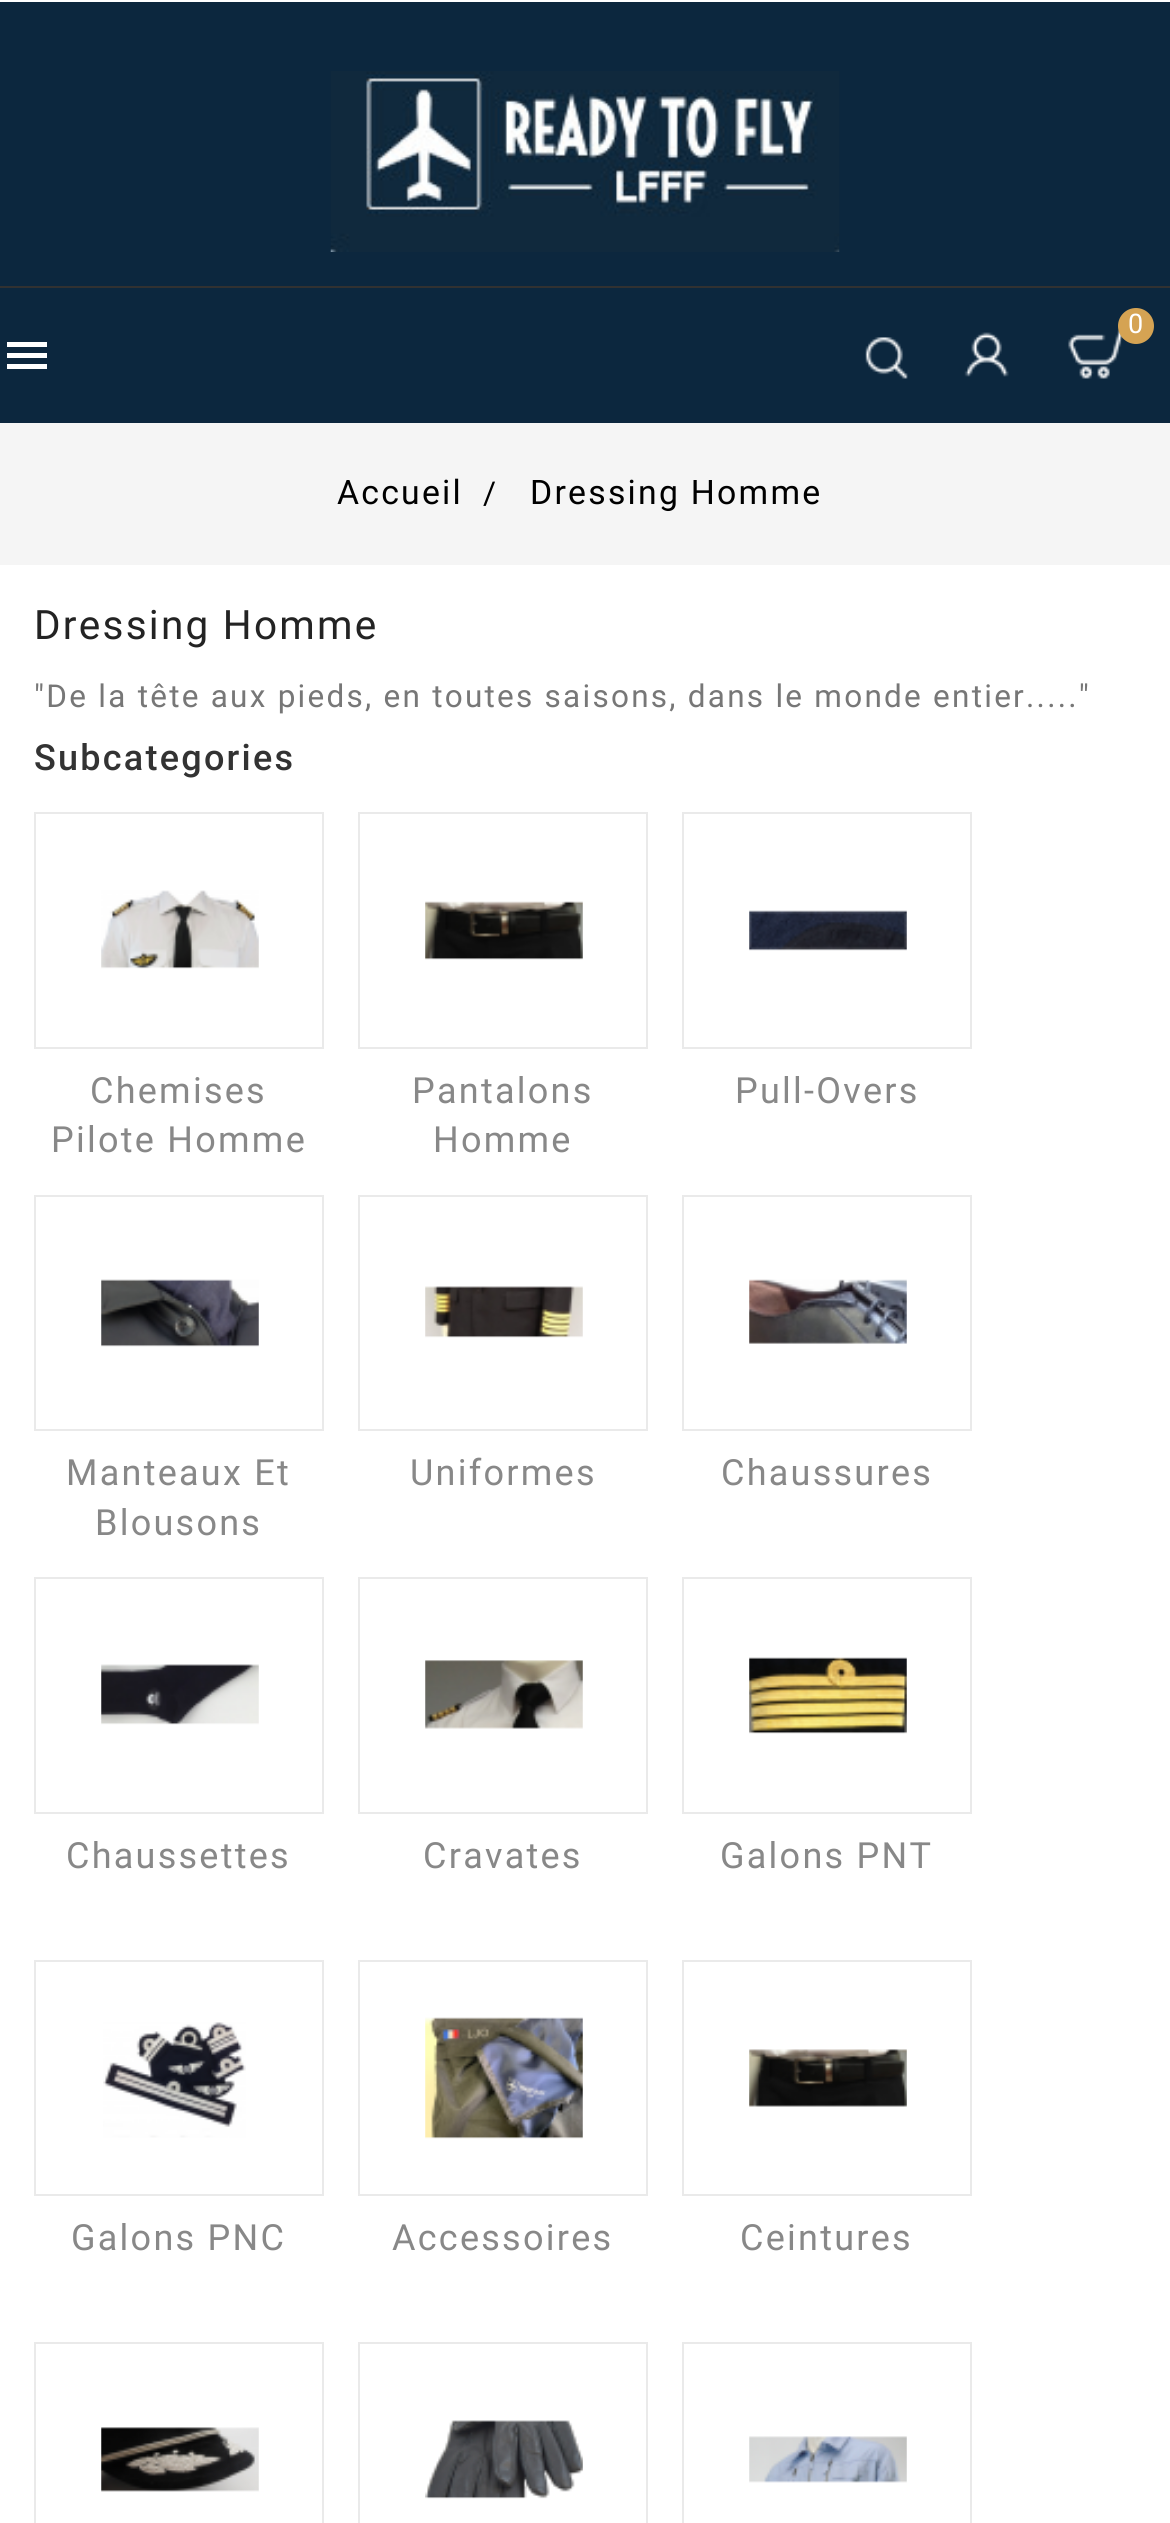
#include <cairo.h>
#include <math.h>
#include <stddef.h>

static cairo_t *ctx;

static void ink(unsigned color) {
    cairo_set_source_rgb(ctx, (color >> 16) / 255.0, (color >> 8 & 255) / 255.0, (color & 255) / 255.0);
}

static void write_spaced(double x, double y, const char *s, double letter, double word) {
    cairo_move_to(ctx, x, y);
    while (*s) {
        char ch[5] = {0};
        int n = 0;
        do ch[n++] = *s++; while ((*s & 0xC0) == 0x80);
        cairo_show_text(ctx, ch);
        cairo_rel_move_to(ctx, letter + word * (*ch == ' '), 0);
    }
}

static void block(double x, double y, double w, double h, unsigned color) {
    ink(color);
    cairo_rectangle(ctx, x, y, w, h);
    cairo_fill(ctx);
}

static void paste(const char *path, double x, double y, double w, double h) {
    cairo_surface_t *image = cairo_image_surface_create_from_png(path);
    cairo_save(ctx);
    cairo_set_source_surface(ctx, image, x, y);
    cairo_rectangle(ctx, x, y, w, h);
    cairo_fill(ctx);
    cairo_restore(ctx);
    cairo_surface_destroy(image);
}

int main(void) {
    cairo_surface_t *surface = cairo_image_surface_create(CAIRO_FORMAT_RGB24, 1170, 2523);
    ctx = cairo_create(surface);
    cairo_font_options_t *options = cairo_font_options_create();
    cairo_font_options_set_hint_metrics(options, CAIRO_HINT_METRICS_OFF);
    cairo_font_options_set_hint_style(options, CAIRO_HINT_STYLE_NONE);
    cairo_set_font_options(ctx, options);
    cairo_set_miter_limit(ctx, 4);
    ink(0xffffff);
    cairo_paint(ctx);
    block(0, 2, 1170, 421, 0x0c273e);
    paste("pic1.png", 330, 71, 510, 181);
    block(0, 286, 1170, 2, 0x313131);
    paste("pic2.png", 1068, 328, 55, 51);
    ink(0xd5a353);
    cairo_arc(ctx, 1136, 326, 18, 0, 2 * M_PI);
    cairo_fill(ctx);
    cairo_select_font_face(ctx, "Roboto", CAIRO_FONT_SLANT_NORMAL, CAIRO_FONT_WEIGHT_NORMAL);
    cairo_set_font_size(ctx, 27);
    ink(0xffffff);
    write_spaced(1128, 333, "0", 2.25, 0);
    cairo_new_path(ctx);
    cairo_move_to(ctx, 7, 342);
    cairo_line_to(ctx, 47, 342);
    cairo_line_to(ctx, 47, 347);
    cairo_line_to(ctx, 7, 347);
    cairo_close_path(ctx);
    cairo_move_to(ctx, 7, 358);
    cairo_line_to(ctx, 7, 353);
    cairo_line_to(ctx, 47, 353);
    cairo_line_to(ctx, 47, 358);
    cairo_close_path(ctx);
    cairo_move_to(ctx, 7, 369);
    cairo_line_to(ctx, 7, 364);
    cairo_line_to(ctx, 47, 364);
    cairo_line_to(ctx, 47, 369);
    cairo_close_path(ctx);
    cairo_fill(ctx);
    paste("pic3.png", 964, 332, 45, 45);
    paste("pic4.png", 865, 337, 43, 42);
    block(0, 423, 1170, 142, 0xf5f5f5);
    cairo_set_font_size(ctx, 33.75);
    ink(0x000000);
    write_spaced(337, 504, "Accueil", 2.25, 0);
    cairo_set_font_size(ctx, 31.5);
    write_spaced(483, 504, "/", 2.25, 0);
    cairo_set_font_size(ctx, 33.75);
    write_spaced(530, 504, "Dressing Homme", 2.25, 0);
    cairo_set_font_size(ctx, 40.5);
    ink(0x232323);
    write_spaced(34, 639, "Dressing Homme", 2.25, 0);
    cairo_set_font_size(ctx, 31.5);
    ink(0x777777);
    write_spaced(34, 707, "\"De la tête aux pieds, en toutes saisons, dans le monde entier.....\"", 2.25, 0);
    cairo_select_font_face(ctx, "Roboto Medium", CAIRO_FONT_SLANT_NORMAL, CAIRO_FONT_WEIGHT_NORMAL);
    cairo_set_font_size(ctx, 36);
    ink(0x333333);
    write_spaced(34, 770, "Subcategories", 2.25, 0);
    cairo_rectangle(ctx, 35, 813, 288, 235);
    ink(0xeaeaea);
    cairo_stroke(ctx);
    paste("pic5.png", 101, 890, 158, 79);
    cairo_select_font_face(ctx, "Roboto", CAIRO_FONT_SLANT_NORMAL, CAIRO_FONT_WEIGHT_NORMAL);
    ink(0x888888);
    write_spaced(90, 1103, "Chemises", 2.25, 0);
    write_spaced(51, 1152, "Pilote Homme", 2.25, 0);
    cairo_rectangle(ctx, 359, 813, 288, 235);
    ink(0xeaeaea);
    cairo_stroke(ctx);
    paste("pic6.png", 425, 901, 158, 59);
    ink(0x888888);
    write_spaced(412, 1103, "Pantalons", 2.25, 0);
    write_spaced(433, 1152, "Homme", 2.25, 0);
    cairo_rectangle(ctx, 683, 813, 288, 235);
    ink(0xeaeaea);
    cairo_stroke(ctx);
    paste("pic7.png", 749, 910, 158, 41);
    ink(0x888888);
    write_spaced(735, 1103, "Pull-Overs", 2.25, 0);
    cairo_rectangle(ctx, 35, 1196, 288, 234);
    ink(0xeaeaea);
    cairo_stroke(ctx);
    paste("pic8.png", 101, 1279, 158, 68);
    ink(0x888888);
    write_spaced(66, 1485, "Manteaux Et", 2.25, 0);
    write_spaced(95, 1535, "Blousons", 2.25, 0);
    cairo_rectangle(ctx, 359, 1196, 288, 234);
    ink(0xeaeaea);
    cairo_stroke(ctx);
    paste("pic9.png", 425, 1286, 158, 52);
    ink(0x888888);
    write_spaced(410, 1485, "Uniformes", 2.25, 0);
    cairo_rectangle(ctx, 683, 1196, 288, 234);
    ink(0xeaeaea);
    cairo_stroke(ctx);
    paste("pic10.png", 749, 1279, 158, 65);
    ink(0x888888);
    write_spaced(721, 1485, "Chaussures", 2.25, 0);
    cairo_rectangle(ctx, 35, 1578, 288, 235);
    ink(0xeaeaea);
    cairo_stroke(ctx);
    paste("pic11.png", 101, 1664, 158, 61);
    ink(0x888888);
    write_spaced(66, 1868, "Chaussettes", 2.25, 0);
    cairo_rectangle(ctx, 359, 1578, 288, 235);
    ink(0xeaeaea);
    cairo_stroke(ctx);
    paste("pic12.png", 425, 1660, 158, 69);
    ink(0x888888);
    write_spaced(423, 1868, "Cravates", 2.25, 0);
    cairo_rectangle(ctx, 683, 1578, 288, 235);
    ink(0xeaeaea);
    cairo_stroke(ctx);
    paste("pic13.png", 749, 1657, 158, 77);
    ink(0x888888);
    write_spaced(720, 1868, "Galons PNT", 2.25, 0);
    cairo_rectangle(ctx, 35, 1961, 288, 234);
    ink(0xeaeaea);
    cairo_stroke(ctx);
    paste("pic14.png", 103, 2022, 143, 116);
    ink(0x888888);
    write_spaced(71, 2250, "Galons PNC", 2.25, 0);
    cairo_rectangle(ctx, 359, 1961, 288, 234);
    ink(0xeaeaea);
    cairo_stroke(ctx);
    paste("pic15.png", 425, 2017, 158, 122);
    ink(0x888888);
    write_spaced(392, 2250, "Accessoires", 2.25, 0);
    cairo_rectangle(ctx, 683, 1961, 288, 234);
    ink(0xeaeaea);
    cairo_stroke(ctx);
    paste("pic16.png", 749, 2049, 158, 58);
    ink(0x888888);
    write_spaced(740, 2250, "Ceintures", 2.25, 0);
    cairo_rectangle(ctx, 35, 2343, 288, 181);
    ink(0xeaeaea);
    cairo_stroke(ctx);
    paste("pic17.png", 101, 2427, 158, 65);
    cairo_rectangle(ctx, 359, 2343, 288, 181);
    cairo_stroke(ctx);
    paste("pic18.png", 425, 2420, 158, 79);
    cairo_rectangle(ctx, 683, 2343, 288, 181);
    cairo_stroke(ctx);
    paste("pic19.png", 749, 2436, 158, 47);
    cairo_surface_write_to_png(surface, "screenshot.png");
    cairo_font_options_destroy(options);
    cairo_destroy(ctx);
    cairo_surface_destroy(surface);
    return 0;
}
